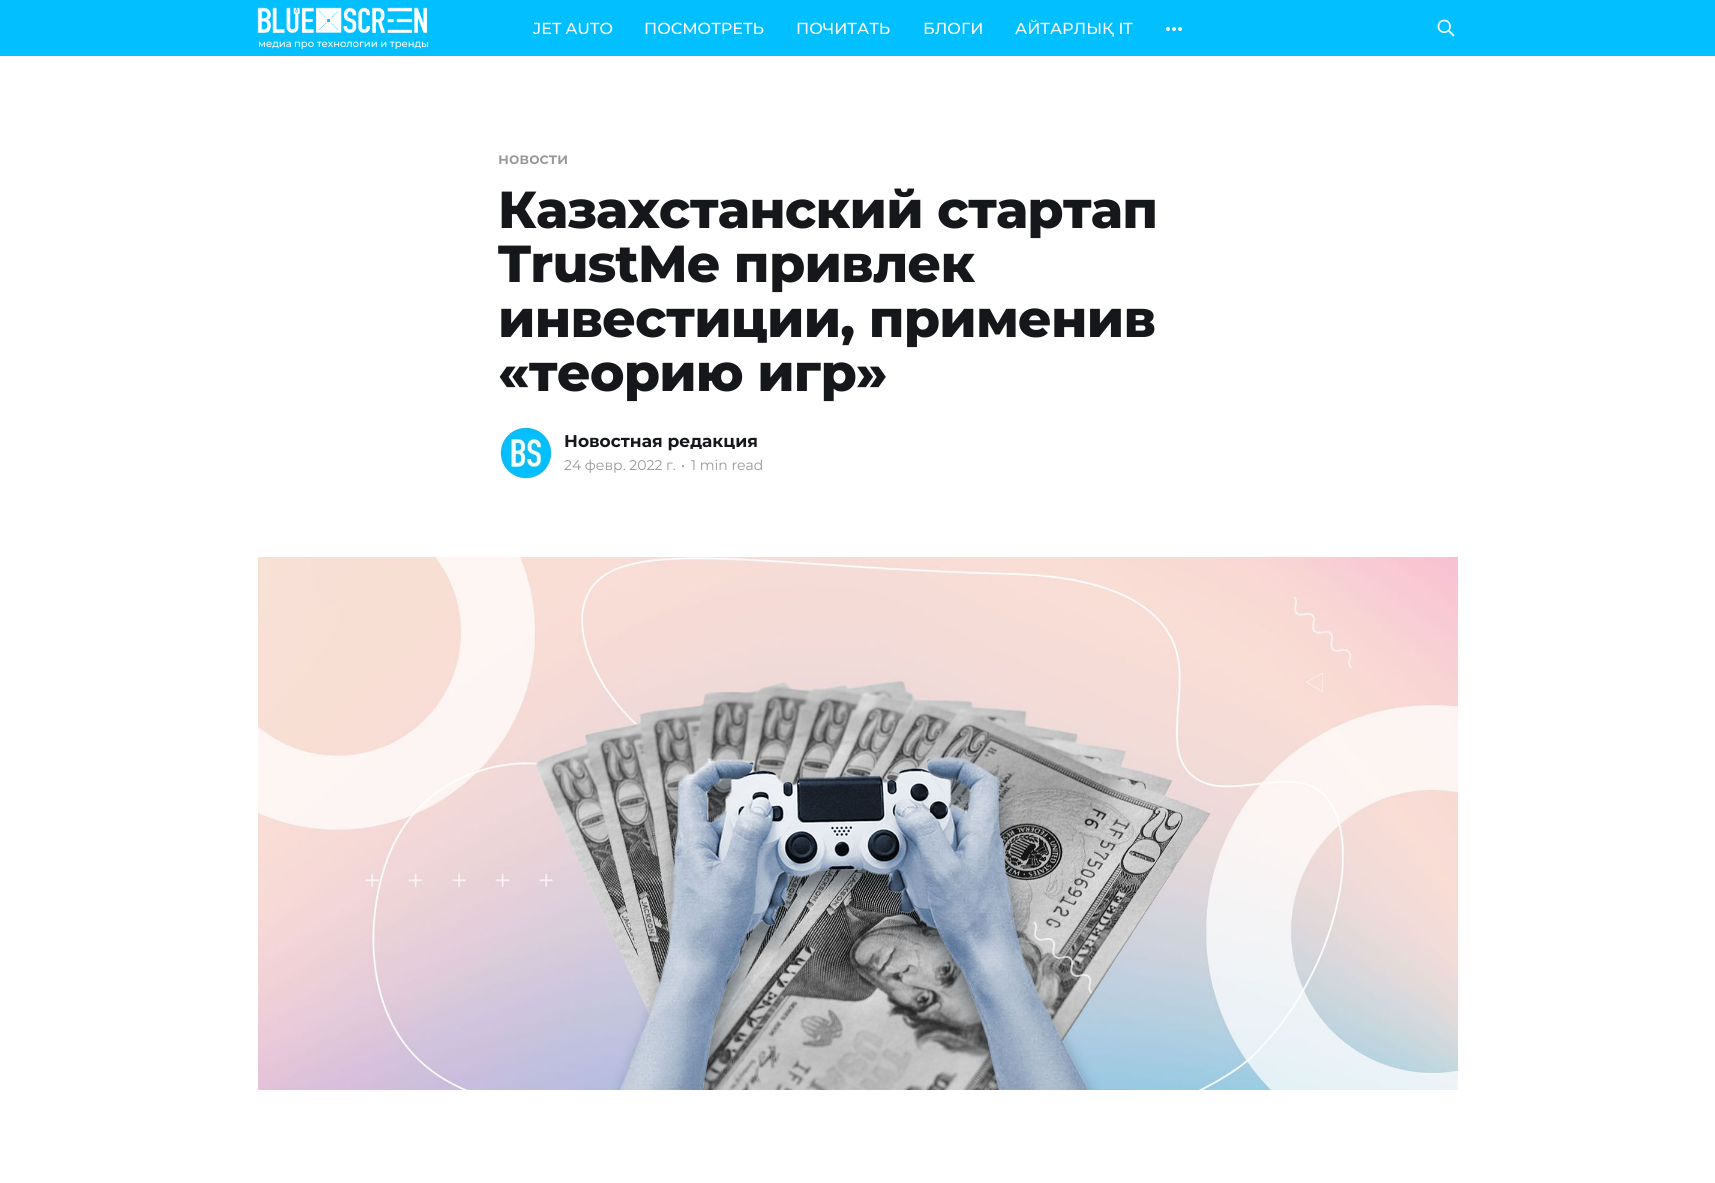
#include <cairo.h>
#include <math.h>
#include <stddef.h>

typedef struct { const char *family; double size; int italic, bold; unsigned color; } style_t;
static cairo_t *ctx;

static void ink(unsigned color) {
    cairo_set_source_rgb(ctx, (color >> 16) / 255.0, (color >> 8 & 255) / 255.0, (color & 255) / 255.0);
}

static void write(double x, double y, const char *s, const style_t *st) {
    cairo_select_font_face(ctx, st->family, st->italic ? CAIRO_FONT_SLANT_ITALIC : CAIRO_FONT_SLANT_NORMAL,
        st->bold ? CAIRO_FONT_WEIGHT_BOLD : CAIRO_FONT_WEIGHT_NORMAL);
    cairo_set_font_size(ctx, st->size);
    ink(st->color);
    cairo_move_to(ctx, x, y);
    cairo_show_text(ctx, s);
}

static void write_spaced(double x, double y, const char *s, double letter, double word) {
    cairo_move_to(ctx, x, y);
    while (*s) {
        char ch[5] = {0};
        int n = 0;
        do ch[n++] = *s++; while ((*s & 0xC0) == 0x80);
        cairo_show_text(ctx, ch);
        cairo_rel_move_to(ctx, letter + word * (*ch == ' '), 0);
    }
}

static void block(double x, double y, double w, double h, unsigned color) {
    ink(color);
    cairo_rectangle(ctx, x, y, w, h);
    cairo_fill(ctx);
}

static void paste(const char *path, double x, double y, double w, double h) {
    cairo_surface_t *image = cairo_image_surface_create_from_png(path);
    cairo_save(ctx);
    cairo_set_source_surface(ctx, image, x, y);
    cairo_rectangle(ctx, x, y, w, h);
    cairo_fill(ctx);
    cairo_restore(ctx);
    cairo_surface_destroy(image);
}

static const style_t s1 = {"Montserrat Medium", 16, 0, 0, 0xffffff};
static const style_t s2 = {"Montserrat SemiBold", 16, 0, 0, 0x979797};
static const style_t s3 = {"Montserrat", 17, 0, 1, 0x15171a};
static const style_t s4 = {"Montserrat", 14, 0, 0, 0x979797};

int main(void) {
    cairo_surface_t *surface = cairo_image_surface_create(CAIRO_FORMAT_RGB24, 1715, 1183);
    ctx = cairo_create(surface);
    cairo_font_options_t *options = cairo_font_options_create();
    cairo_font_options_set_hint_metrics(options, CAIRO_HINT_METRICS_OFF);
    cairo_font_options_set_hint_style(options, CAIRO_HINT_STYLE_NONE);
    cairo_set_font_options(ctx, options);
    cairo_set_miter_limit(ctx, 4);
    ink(0xffffff);
    cairo_paint(ctx);
    block(0, 0, 1715, 56, 0x02bfff);
    write(533, 34, "JET AUTO", &s1);
    write(644, 34, "ПОСМОТРЕТЬ", &s1);
    write(796, 34, "ПОЧИТАТЬ", &s1);
    write(923, 34, "БЛОГИ", &s1);
    write(1015, 34, "АЙТАРЛЫҚ IT", &s1);
    paste("pic1.png", 1166, 27, 16, 4);
    cairo_new_path(ctx);
    cairo_move_to(ctx, 1453.5, 35.5);
    cairo_line_to(ctx, 1448.5, 30.5);
    cairo_move_to(ctx, 1450, 26.5);
    cairo_curve_to(ctx, 1450, 34, 1438.5, 34, 1438.5, 26.5);
    cairo_curve_to(ctx, 1438.5, 18.5, 1450, 18.5, 1450, 26.5);
    cairo_close_path(ctx);
    cairo_set_line_width(ctx, 1.7);
    cairo_set_line_cap(ctx, CAIRO_LINE_CAP_ROUND);
    cairo_set_line_join(ctx, CAIRO_LINE_JOIN_ROUND);
    cairo_stroke(ctx);
    paste("pic2.png", 257, 7, 171, 26);
    cairo_set_font_size(ctx, 10);
    write_spaced(258, 47, "медиа про технологии и тренды", -0.05, 0);
    write(498, 164, "новости", &s2);
    cairo_select_font_face(ctx, "Montserrat ExtraBold", CAIRO_FONT_SLANT_NORMAL, CAIRO_FONT_WEIGHT_NORMAL);
    cairo_set_font_size(ctx, 52);
    ink(0x15171a);
    write_spaced(498, 228, "Казахстанский стартап", -0.75, 0);
    write_spaced(498, 282, "TrustMe привлек", -0.75, 0);
    write_spaced(498, 337, "инвестиции, применив", -0.75, 0);
    write_spaced(498, 391, "«теорию игр»", -0.75, 0);
    paste("pic3.png", 500, 427, 52, 52);
    write(564, 447, "Новостная редакция", &s3);
    write(564, 470, "24 февр. 2022 г.", &s4);
    write(681, 470, "•", &s4);
    write(691, 470, "1 min read", &s4);
    paste("pic4.png", 258, 557, 1200, 533);
    cairo_surface_write_to_png(surface, "screenshot.png");
    cairo_font_options_destroy(options);
    cairo_destroy(ctx);
    cairo_surface_destroy(surface);
    return 0;
}
